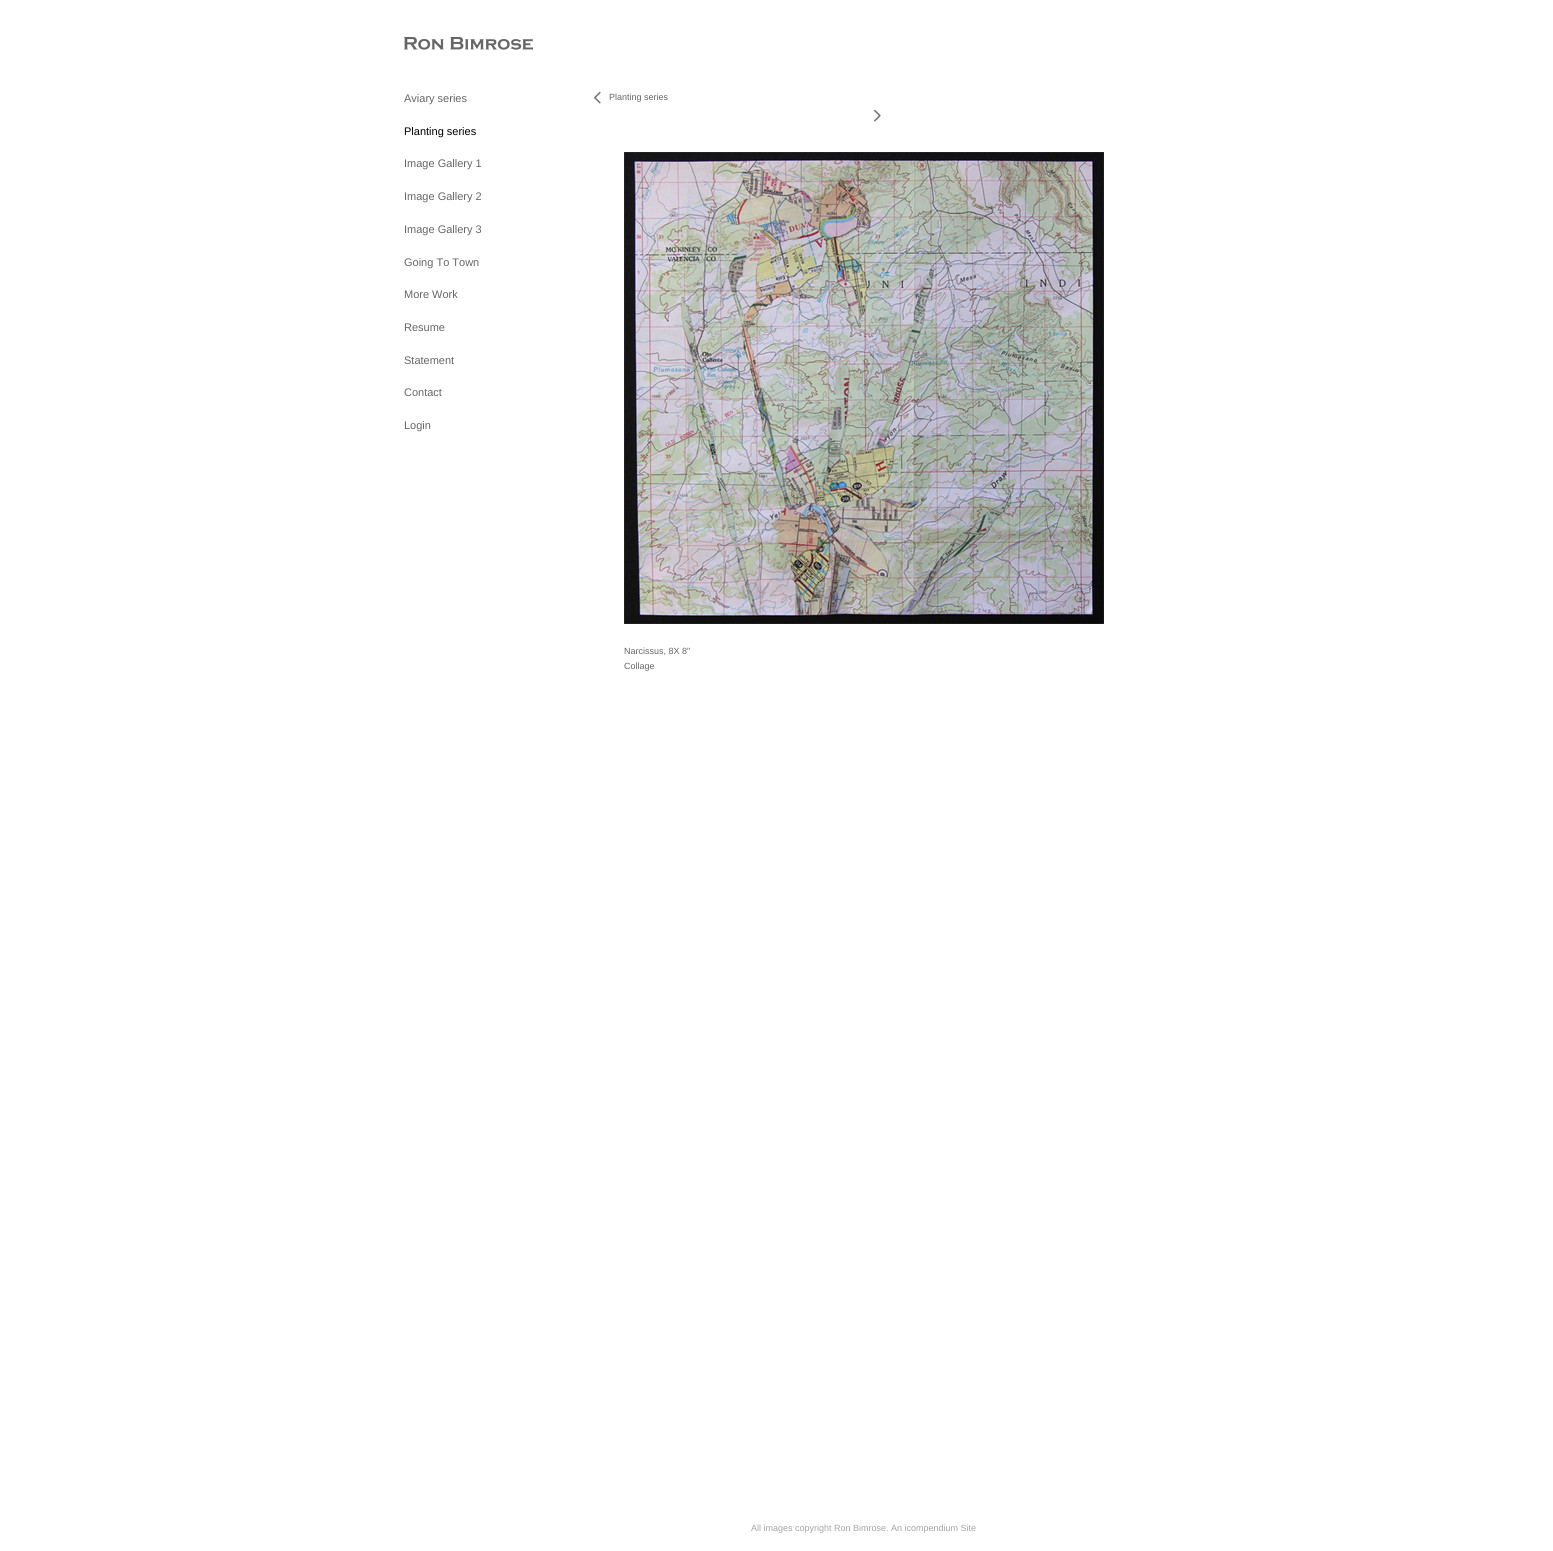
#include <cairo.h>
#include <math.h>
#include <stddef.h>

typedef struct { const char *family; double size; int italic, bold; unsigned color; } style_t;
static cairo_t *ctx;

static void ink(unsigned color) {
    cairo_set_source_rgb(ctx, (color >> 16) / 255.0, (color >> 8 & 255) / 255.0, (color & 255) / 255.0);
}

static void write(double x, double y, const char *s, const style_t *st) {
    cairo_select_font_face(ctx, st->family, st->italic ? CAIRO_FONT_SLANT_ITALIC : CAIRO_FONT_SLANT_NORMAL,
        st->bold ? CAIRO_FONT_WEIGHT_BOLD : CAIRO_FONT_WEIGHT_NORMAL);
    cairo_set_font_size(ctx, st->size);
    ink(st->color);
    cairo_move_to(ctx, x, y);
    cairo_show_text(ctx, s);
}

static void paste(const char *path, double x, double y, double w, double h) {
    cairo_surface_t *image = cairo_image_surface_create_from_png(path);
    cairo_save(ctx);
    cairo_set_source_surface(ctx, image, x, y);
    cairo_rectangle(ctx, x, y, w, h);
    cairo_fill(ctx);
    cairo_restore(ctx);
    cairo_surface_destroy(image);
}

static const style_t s1 = {"Liberation Sans", 11, 0, 0, 0x666666};
static const style_t s2 = {"Liberation Sans", 11, 0, 0, 0x000000};
static const style_t s3 = {"Liberation Sans", 9, 0, 0, 0x666666};
static const style_t s4 = {"Liberation Sans", 9, 0, 0, 0xa4a4a4};

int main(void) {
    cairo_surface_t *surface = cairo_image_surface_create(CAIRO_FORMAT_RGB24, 1553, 1551);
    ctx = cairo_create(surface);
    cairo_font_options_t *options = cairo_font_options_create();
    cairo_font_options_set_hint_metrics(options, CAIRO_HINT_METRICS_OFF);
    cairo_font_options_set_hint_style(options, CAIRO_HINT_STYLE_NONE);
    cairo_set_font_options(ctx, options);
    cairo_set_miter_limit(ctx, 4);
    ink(0xffffff);
    cairo_paint(ctx);
    paste("pic1.png", 404, 37, 129, 13);
    write(404, 102, "Aviary series", &s1);
    write(404, 135, "Planting series", &s2);
    write(404, 167, "Image Gallery 1", &s1);
    write(404, 200, "Image Gallery 2", &s1);
    write(404, 233, "Image Gallery 3", &s1);
    write(404, 266, "Going To Town", &s1);
    write(404, 298, "More Work", &s1);
    write(404, 331, "Resume", &s1);
    write(404, 364, "Statement", &s1);
    write(404, 396, "Contact", &s1);
    write(404, 429, "Login", &s1);
    paste("pic2.png", 594, 91, 7, 13);
    write(609, 100, "Planting series", &s3);
    paste("pic3.png", 874, 109, 7, 13);
    paste("pic4.png", 624, 152, 480, 472);
    write(624, 654, "Narcissus, 8X 8\"", &s3);
    write(624, 669, "Collage", &s3);
    write(751, 1531, "All images copyright Ron Bimrose. An icompendium Site", &s4);
    cairo_surface_write_to_png(surface, "screenshot.png");
    cairo_font_options_destroy(options);
    cairo_destroy(ctx);
    cairo_surface_destroy(surface);
    return 0;
}
